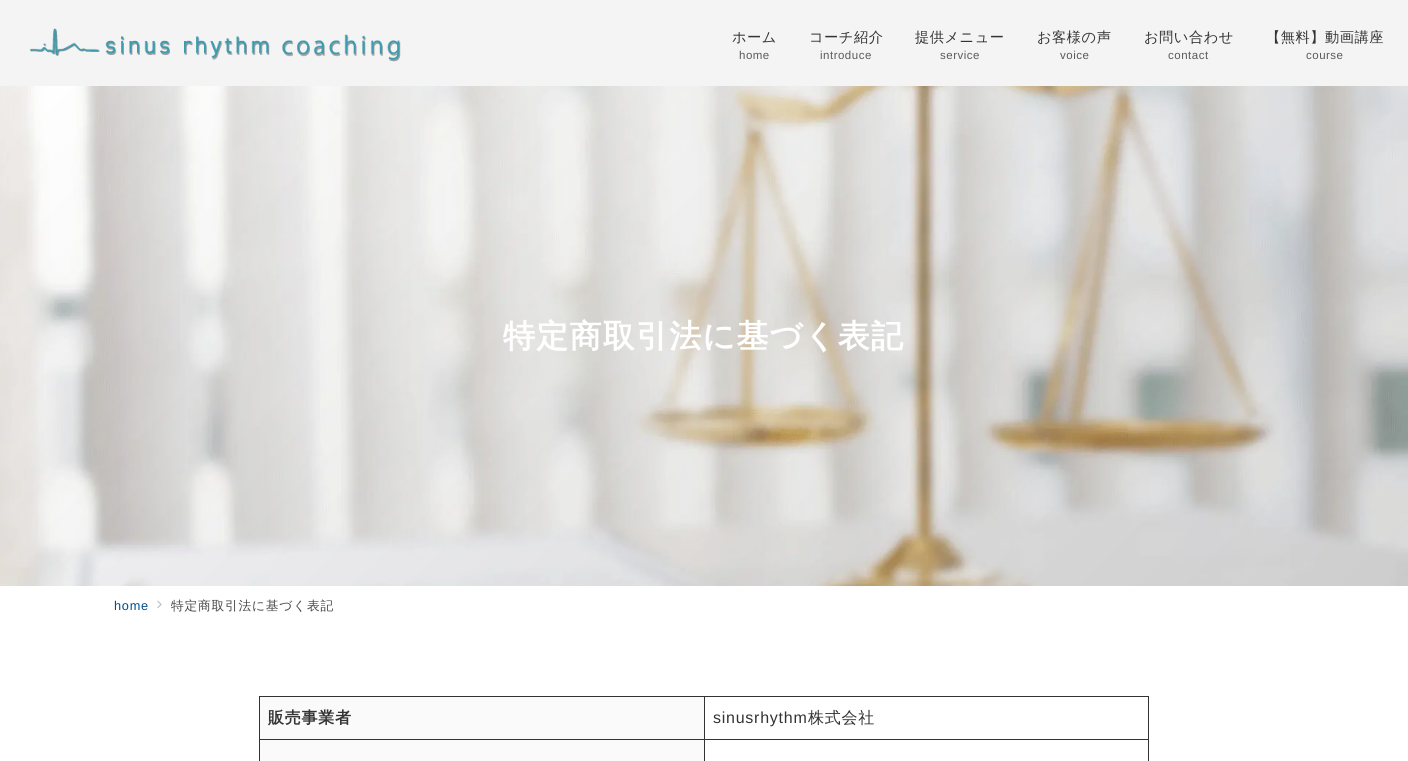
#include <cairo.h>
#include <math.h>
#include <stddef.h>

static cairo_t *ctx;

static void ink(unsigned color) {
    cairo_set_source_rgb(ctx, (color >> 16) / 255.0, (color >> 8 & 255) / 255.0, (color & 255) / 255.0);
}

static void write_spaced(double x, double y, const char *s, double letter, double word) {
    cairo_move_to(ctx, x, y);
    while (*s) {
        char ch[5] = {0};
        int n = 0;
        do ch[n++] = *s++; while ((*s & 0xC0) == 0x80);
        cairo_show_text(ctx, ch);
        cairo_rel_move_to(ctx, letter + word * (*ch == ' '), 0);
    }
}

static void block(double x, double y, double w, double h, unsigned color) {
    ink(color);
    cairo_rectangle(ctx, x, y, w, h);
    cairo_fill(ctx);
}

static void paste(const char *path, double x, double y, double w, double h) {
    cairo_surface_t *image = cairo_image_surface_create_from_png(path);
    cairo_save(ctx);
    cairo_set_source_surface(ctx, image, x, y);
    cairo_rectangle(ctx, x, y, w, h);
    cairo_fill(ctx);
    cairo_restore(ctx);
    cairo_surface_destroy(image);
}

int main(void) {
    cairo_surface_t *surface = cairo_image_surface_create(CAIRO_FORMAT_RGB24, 1408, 761);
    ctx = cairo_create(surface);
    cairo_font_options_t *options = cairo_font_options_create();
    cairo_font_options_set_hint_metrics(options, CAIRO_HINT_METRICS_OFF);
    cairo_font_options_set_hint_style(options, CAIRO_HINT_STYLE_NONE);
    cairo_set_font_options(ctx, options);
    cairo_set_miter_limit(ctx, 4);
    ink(0xffffff);
    cairo_paint(ctx);
    block(0, 0, 1408, 86, 0xf4f4f4);
    paste("pic1.png", 29, 28, 372, 34);
    cairo_select_font_face(ctx, "WenQuanYi Zen Hei Medium", CAIRO_FONT_SLANT_NORMAL, CAIRO_FONT_WEIGHT_NORMAL);
    cairo_set_font_size(ctx, 14.25);
    ink(0x333333);
    write_spaced(732, 42, "ホーム", 0.5, 0);
    cairo_select_font_face(ctx, "Liberation Sans", CAIRO_FONT_SLANT_NORMAL, CAIRO_FONT_WEIGHT_NORMAL);
    cairo_set_font_size(ctx, 11.5);
    ink(0x5a5a5a);
    write_spaced(739, 59, "home", 0.5, 0);
    cairo_select_font_face(ctx, "WenQuanYi Zen Hei Medium", CAIRO_FONT_SLANT_NORMAL, CAIRO_FONT_WEIGHT_NORMAL);
    cairo_set_font_size(ctx, 14.25);
    ink(0x333333);
    write_spaced(809, 42, "コーチ紹介", 0.5, 0);
    cairo_select_font_face(ctx, "Liberation Sans", CAIRO_FONT_SLANT_NORMAL, CAIRO_FONT_WEIGHT_NORMAL);
    cairo_set_font_size(ctx, 11.5);
    ink(0x5a5a5a);
    write_spaced(820, 59, "introduce", 0.5, 0);
    cairo_select_font_face(ctx, "WenQuanYi Zen Hei Medium", CAIRO_FONT_SLANT_NORMAL, CAIRO_FONT_WEIGHT_NORMAL);
    cairo_set_font_size(ctx, 14.25);
    ink(0x333333);
    write_spaced(915, 42, "提供メニュー", 0.5, 0);
    cairo_select_font_face(ctx, "Liberation Sans", CAIRO_FONT_SLANT_NORMAL, CAIRO_FONT_WEIGHT_NORMAL);
    cairo_set_font_size(ctx, 11.5);
    ink(0x5a5a5a);
    write_spaced(940, 59, "service", 0.5, 0);
    cairo_select_font_face(ctx, "WenQuanYi Zen Hei Medium", CAIRO_FONT_SLANT_NORMAL, CAIRO_FONT_WEIGHT_NORMAL);
    cairo_set_font_size(ctx, 14.25);
    ink(0x333333);
    write_spaced(1037, 42, "お客様の声", 0.5, 0);
    cairo_select_font_face(ctx, "Liberation Sans", CAIRO_FONT_SLANT_NORMAL, CAIRO_FONT_WEIGHT_NORMAL);
    cairo_set_font_size(ctx, 11.5);
    ink(0x5a5a5a);
    write_spaced(1060, 59, "voice", 0.5, 0);
    cairo_select_font_face(ctx, "WenQuanYi Zen Hei Medium", CAIRO_FONT_SLANT_NORMAL, CAIRO_FONT_WEIGHT_NORMAL);
    cairo_set_font_size(ctx, 14.25);
    ink(0x333333);
    write_spaced(1144, 42, "お問い合わせ", 0.5, 0);
    cairo_select_font_face(ctx, "Liberation Sans", CAIRO_FONT_SLANT_NORMAL, CAIRO_FONT_WEIGHT_NORMAL);
    cairo_set_font_size(ctx, 11.5);
    ink(0x5a5a5a);
    write_spaced(1168, 59, "contact", 0.5, 0);
    cairo_select_font_face(ctx, "WenQuanYi Zen Hei Medium", CAIRO_FONT_SLANT_NORMAL, CAIRO_FONT_WEIGHT_NORMAL);
    cairo_set_font_size(ctx, 14.25);
    ink(0x333333);
    write_spaced(1266, 42, "【無料】動画講座", 0.5, 0);
    cairo_select_font_face(ctx, "Liberation Sans", CAIRO_FONT_SLANT_NORMAL, CAIRO_FONT_WEIGHT_NORMAL);
    cairo_set_font_size(ctx, 11.5);
    ink(0x5a5a5a);
    write_spaced(1306, 59, "course", 0.5, 0);
    paste("pic2.png", 0, 86, 1408, 500);
    cairo_select_font_face(ctx, "WenQuanYi Zen Hei", CAIRO_FONT_SLANT_NORMAL, CAIRO_FONT_WEIGHT_BOLD);
    cairo_set_font_size(ctx, 32);
    ink(0xffffff);
    write_spaced(503, 347, "特定商取引法に基づく表記", 1.25, 0);
    cairo_select_font_face(ctx, "Liberation Sans", CAIRO_FONT_SLANT_NORMAL, CAIRO_FONT_WEIGHT_NORMAL);
    cairo_set_font_size(ctx, 12.75);
    ink(0x004e8e);
    write_spaced(114, 610, "home", 0.75, 0);
    paste("pic3.png", 157, 600, 5, 8);
    cairo_select_font_face(ctx, "WenQuanYi Zen Hei Medium", CAIRO_FONT_SLANT_NORMAL, CAIRO_FONT_WEIGHT_NORMAL);
    ink(0x484848);
    write_spaced(171, 610, "特定商取引法に基づく表記", 0.75, 0);
    block(260, 697, 444, 42, 0xfafafa);
    block(704, 696, 445, 1, 0x333333);
    block(704, 739, 445, 1, 0x333333);
    block(704, 739, 1, 22, 0x333333);
    block(259, 739, 446, 1, 0x333333);
    block(704, 696, 1, 44, 0x333333);
    block(259, 696, 446, 1, 0x333333);
    block(259, 739, 1, 22, 0x333333);
    block(259, 696, 1, 44, 0x333333);
    cairo_select_font_face(ctx, "WenQuanYi Zen Hei", CAIRO_FONT_SLANT_NORMAL, CAIRO_FONT_WEIGHT_BOLD);
    cairo_set_font_size(ctx, 16);
    write_spaced(268, 723, "販売事業者", 0.75, 0);
    block(1148, 739, 1, 22, 0x333333);
    block(1148, 696, 1, 44, 0x333333);
    cairo_select_font_face(ctx, "Liberation Sans", CAIRO_FONT_SLANT_NORMAL, CAIRO_FONT_WEIGHT_NORMAL);
    write_spaced(713, 723, "sinusrhythm", 0.75, 0);
    cairo_select_font_face(ctx, "WenQuanYi Zen Hei Medium", CAIRO_FONT_SLANT_NORMAL, CAIRO_FONT_WEIGHT_NORMAL);
    write_spaced(808, 723, "株式会社", 0.75, 0);
    block(260, 740, 444, 21, 0xfafafa);
    cairo_surface_write_to_png(surface, "screenshot.png");
    cairo_font_options_destroy(options);
    cairo_destroy(ctx);
    cairo_surface_destroy(surface);
    return 0;
}
